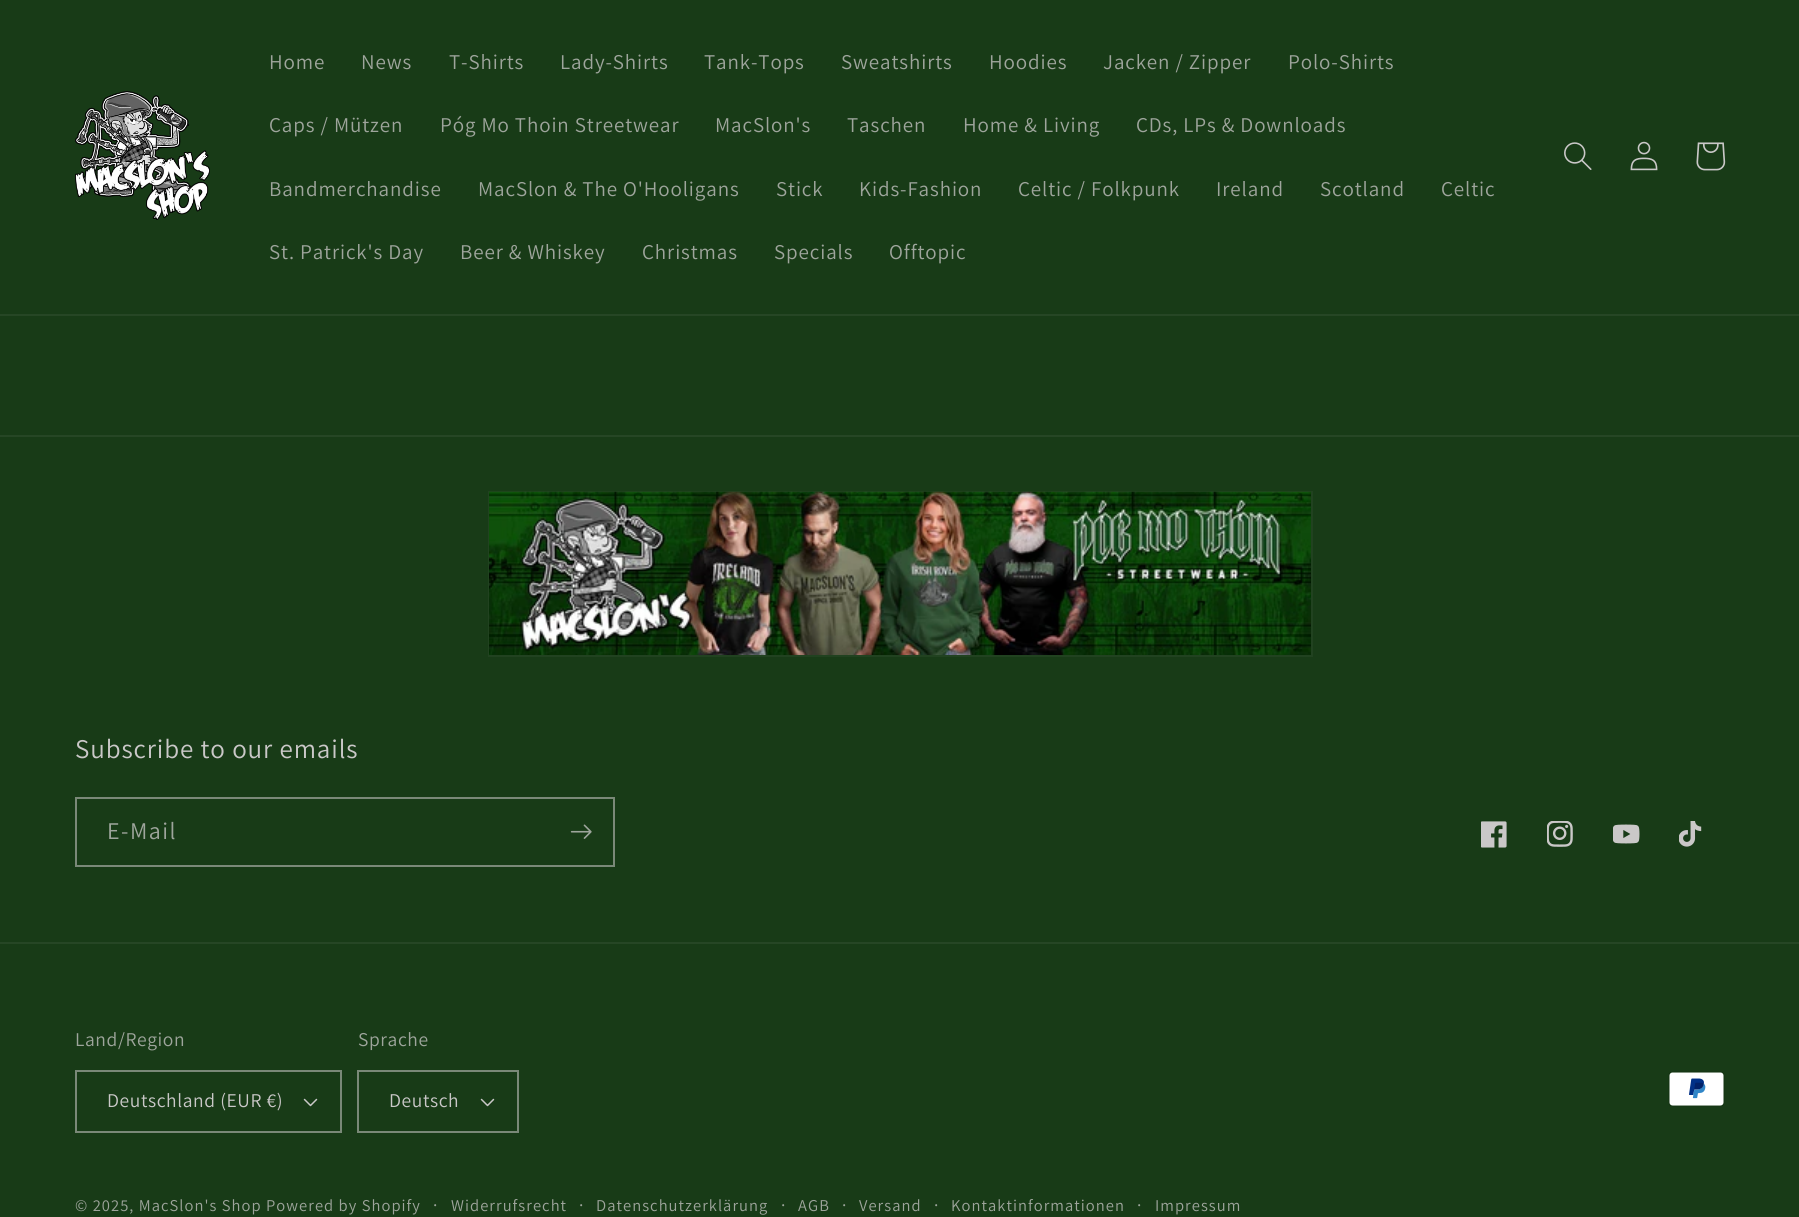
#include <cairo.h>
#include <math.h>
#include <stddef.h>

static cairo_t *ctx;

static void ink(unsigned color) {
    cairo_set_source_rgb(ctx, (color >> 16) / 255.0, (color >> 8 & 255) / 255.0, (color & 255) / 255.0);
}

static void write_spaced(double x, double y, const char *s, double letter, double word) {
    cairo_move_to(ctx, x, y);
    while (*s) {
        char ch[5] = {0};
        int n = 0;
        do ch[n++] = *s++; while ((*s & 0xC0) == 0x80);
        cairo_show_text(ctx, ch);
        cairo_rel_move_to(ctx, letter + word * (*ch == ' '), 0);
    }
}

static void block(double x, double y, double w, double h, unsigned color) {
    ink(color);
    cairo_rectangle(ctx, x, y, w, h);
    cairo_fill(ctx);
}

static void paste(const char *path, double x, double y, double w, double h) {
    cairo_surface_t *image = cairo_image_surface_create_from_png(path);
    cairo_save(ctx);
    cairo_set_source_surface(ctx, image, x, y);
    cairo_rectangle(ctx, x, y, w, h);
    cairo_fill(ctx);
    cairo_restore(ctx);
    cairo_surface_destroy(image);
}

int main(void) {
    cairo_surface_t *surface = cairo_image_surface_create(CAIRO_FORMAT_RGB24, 1799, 1217);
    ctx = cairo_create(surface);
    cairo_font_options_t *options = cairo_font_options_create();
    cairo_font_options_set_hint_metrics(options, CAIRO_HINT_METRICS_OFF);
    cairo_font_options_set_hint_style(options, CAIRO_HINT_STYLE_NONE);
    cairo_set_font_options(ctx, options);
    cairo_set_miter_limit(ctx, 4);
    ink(0x183b17);
    cairo_paint(ctx);
    block(0, 314, 1799, 2, 0x264625);
    paste("pic1.png", 75, 91, 135, 129);
    cairo_select_font_face(ctx, "Assistant", CAIRO_FONT_SLANT_NORMAL, CAIRO_FONT_WEIGHT_NORMAL);
    cairo_set_font_size(ctx, 21);
    ink(0x9ea59c);
    write_spaced(269, 69, "Home", 0.9, 0);
    write_spaced(361, 69, "News", 0.9, 0);
    write_spaced(449, 69, "T-Shirts", 0.9, 0);
    write_spaced(560, 69, "Lady-Shirts", 0.9, 0);
    write_spaced(704, 69, "Tank-Tops", 0.9, 0);
    write_spaced(841, 69, "Sweatshirts", 0.9, 0);
    write_spaced(989, 69, "Hoodies", 0.9, 0);
    write_spaced(1103, 69, "Jacken / Zipper", 0.9, 0);
    write_spaced(1288, 69, "Polo-Shirts", 0.9, 0);
    write_spaced(269, 132, "Caps / Mützen", 0.9, 0);
    write_spaced(440, 132, "Póg Mo Thoin Streetwear", 0.9, 0);
    write_spaced(715, 132, "MacSlon's", 0.9, 0);
    write_spaced(847, 132, "Taschen", 0.9, 0);
    write_spaced(963, 132, "Home & Living", 0.9, 0);
    write_spaced(1136, 132, "CDs, LPs & Downloads", 0.9, 0);
    write_spaced(269, 196, "Bandmerchandise", 0.9, 0);
    write_spaced(478, 196, "MacSlon & The O'Hooligans", 0.9, 0);
    write_spaced(776, 196, "Stick", 0.9, 0);
    write_spaced(859, 196, "Kids-Fashion", 0.9, 0);
    write_spaced(1018, 196, "Celtic / Folkpunk", 0.9, 0);
    write_spaced(1216, 196, "Ireland", 0.9, 0);
    write_spaced(1320, 196, "Scotland", 0.9, 0);
    write_spaced(1441, 196, "Celtic", 0.9, 0);
    write_spaced(269, 259, "St. Patrick's Day", 0.9, 0);
    write_spaced(460, 259, "Beer & Whiskey", 0.9, 0);
    write_spaced(642, 259, "Christmas", 0.9, 0);
    write_spaced(774, 259, "Specials", 0.9, 0);
    write_spaced(889, 259, "Offtopic", 0.9, 0);
    paste("pic2.png", 1564, 142, 28, 28);
    paste("pic3.png", 1630, 141, 28, 30);
    paste("pic4.png", 1696, 142, 30, 29);
    block(0, 435, 1799, 2, 0x264625);
    cairo_rectangle(ctx, 489, 492, 823, 164);
    ink(0x214220);
    cairo_stroke(ctx);
    paste("pic5.png", 489, 491, 822, 164);
    cairo_set_font_size(ctx, 27);
    ink(0xcac8c8);
    write_spaced(75, 758, "Subscribe to our emails", 0.9, 0);
    cairo_rectangle(ctx, 76, 798, 538, 68);
    ink(0x7a8978);
    cairo_stroke(ctx);
    cairo_set_font_size(ctx, 24);
    ink(0x9ea59c);
    write_spaced(107, 839, "E-Mail", 1.5, 0);
    paste("pic6.png", 570, 824, 22, 15);
    paste("pic7.png", 1481, 821, 26, 27);
    paste("pic8.png", 1547, 821, 26, 26);
    paste("pic9.png", 1613, 824, 27, 20);
    paste("pic10.png", 1679, 821, 23, 26);
    block(0, 942, 1799, 2, 0x264625);
    cairo_set_font_size(ctx, 19.5);
    ink(0x9ea59c);
    write_spaced(75, 1046, "Land/Region", 0.6, 0);
    paste("pic11.png", 303, 1098, 15, 9);
    cairo_rectangle(ctx, 76, 1071, 265, 61);
    ink(0x7a8978);
    cairo_stroke(ctx);
    ink(0xcac8c8);
    write_spaced(107, 1107, "Deutschland (EUR €)", 0.6, 0);
    ink(0x9ea59c);
    write_spaced(358, 1046, "Sprache", 0.6, 0);
    paste("pic11.png", 480, 1098, 15, 9);
    cairo_rectangle(ctx, 358, 1071, 160, 61);
    ink(0x7a8978);
    cairo_stroke(ctx);
    ink(0xcac8c8);
    write_spaced(389, 1107, "Deutsch", 0.6, 0);
    paste("pic12.png", 1668, 1071, 57, 36);
    cairo_set_font_size(ctx, 16.5);
    ink(0x9ea59c);
    write_spaced(75, 1211, "© 2025, MacSlon's Shop", 1.05, 0);
    write_spaced(266, 1211, "Powered by Shopify", 1.05, 0);
    cairo_set_font_size(ctx, 18);
    write_spaced(433, 1211, "·", 1.05, 0);
    cairo_set_font_size(ctx, 16.5);
    write_spaced(451, 1211, "Widerrufsrecht", 1.05, 0);
    cairo_set_font_size(ctx, 18);
    write_spaced(579, 1211, "·", 1.05, 0);
    cairo_set_font_size(ctx, 16.5);
    write_spaced(596, 1211, "Datenschutzerklärung", 1.05, 0);
    cairo_set_font_size(ctx, 18);
    write_spaced(781, 1211, "·", 1.05, 0);
    cairo_set_font_size(ctx, 16.5);
    write_spaced(798, 1211, "AGB", 1.05, 0);
    cairo_set_font_size(ctx, 18);
    write_spaced(842, 1211, "·", 1.05, 0);
    cairo_set_font_size(ctx, 16.5);
    write_spaced(859, 1211, "Versand", 1.05, 0);
    cairo_set_font_size(ctx, 18);
    write_spaced(934, 1211, "·", 1.05, 0);
    cairo_set_font_size(ctx, 16.5);
    write_spaced(951, 1211, "Kontaktinformationen", 1.05, 0);
    cairo_set_font_size(ctx, 18);
    write_spaced(1137, 1211, "·", 1.05, 0);
    cairo_set_font_size(ctx, 16.5);
    write_spaced(1155, 1211, "Impressum", 1.05, 0);
    cairo_surface_write_to_png(surface, "screenshot.png");
    cairo_font_options_destroy(options);
    cairo_destroy(ctx);
    cairo_surface_destroy(surface);
    return 0;
}
